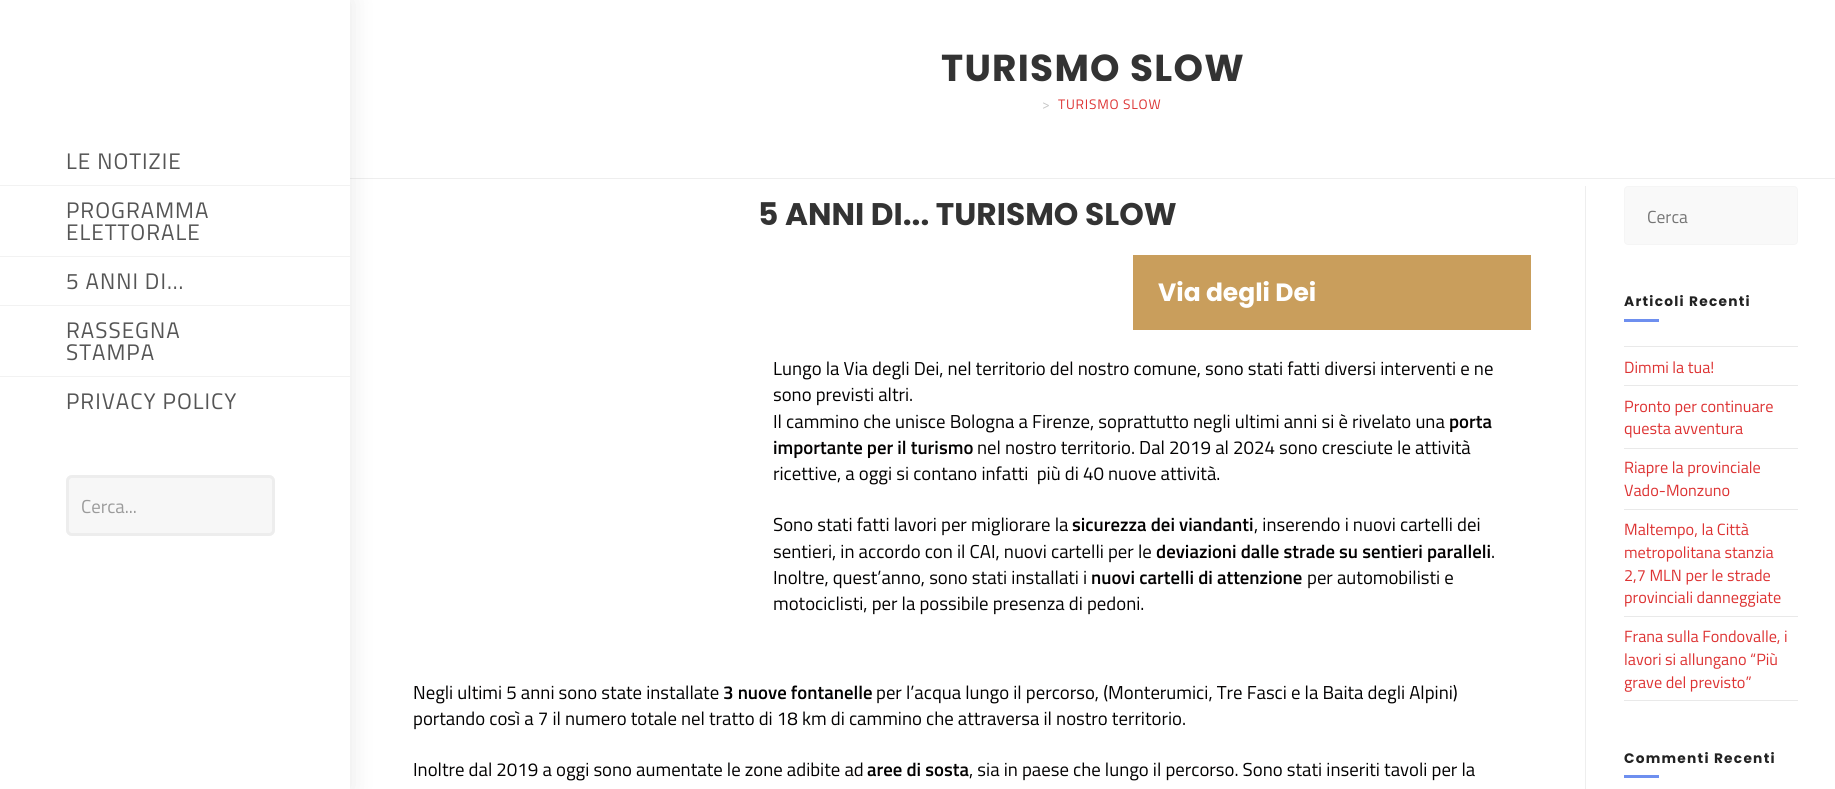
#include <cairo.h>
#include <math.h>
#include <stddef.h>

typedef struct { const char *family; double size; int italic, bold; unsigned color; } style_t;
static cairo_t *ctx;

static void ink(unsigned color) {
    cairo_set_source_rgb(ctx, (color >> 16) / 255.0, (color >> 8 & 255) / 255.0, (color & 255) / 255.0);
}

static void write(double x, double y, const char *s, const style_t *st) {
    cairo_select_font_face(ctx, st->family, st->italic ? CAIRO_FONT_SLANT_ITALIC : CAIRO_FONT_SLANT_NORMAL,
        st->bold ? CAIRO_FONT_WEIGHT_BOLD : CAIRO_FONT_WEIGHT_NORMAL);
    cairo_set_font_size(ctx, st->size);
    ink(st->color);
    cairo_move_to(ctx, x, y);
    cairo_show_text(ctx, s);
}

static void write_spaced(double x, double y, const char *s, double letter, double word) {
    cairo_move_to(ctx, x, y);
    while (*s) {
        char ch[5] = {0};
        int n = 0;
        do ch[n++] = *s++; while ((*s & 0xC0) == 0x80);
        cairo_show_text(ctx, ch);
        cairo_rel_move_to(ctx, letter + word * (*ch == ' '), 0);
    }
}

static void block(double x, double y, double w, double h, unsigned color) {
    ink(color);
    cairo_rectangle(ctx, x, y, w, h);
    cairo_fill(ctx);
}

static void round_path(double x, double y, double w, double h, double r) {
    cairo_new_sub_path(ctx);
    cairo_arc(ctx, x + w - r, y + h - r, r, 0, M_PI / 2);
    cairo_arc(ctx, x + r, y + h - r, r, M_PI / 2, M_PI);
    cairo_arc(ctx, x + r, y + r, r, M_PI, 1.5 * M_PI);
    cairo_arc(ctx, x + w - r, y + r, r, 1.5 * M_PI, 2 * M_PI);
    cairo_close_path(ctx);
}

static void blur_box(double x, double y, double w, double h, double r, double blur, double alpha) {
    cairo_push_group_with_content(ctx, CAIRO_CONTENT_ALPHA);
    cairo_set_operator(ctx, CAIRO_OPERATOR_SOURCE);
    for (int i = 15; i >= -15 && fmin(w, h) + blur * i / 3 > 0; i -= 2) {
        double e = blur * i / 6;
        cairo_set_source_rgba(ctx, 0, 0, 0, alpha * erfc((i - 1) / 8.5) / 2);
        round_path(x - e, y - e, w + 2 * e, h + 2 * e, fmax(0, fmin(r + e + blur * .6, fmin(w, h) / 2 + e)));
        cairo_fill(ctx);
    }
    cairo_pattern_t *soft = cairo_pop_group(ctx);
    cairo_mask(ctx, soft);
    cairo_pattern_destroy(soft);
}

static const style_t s1 = {"Titillium Web", 18.75, 0, 0, 0x9b9b9b};
static const style_t s2 = {"Poppins", 31.25, 0, 1, 0x333333};
static const style_t s3 = {"Poppins", 25, 0, 1, 0xffffff};
static const style_t s4 = {"Titillium Web", 18.75, 0, 0, 0x020101};
static const style_t s5 = {"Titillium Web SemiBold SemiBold", 18.75, 0, 0, 0x020101};
static const style_t s6 = {"Titillium Web", 17.5, 0, 0, 0x757575};
static const style_t s7 = {"Titillium Web", 16.25, 0, 0, 0xdd3333};

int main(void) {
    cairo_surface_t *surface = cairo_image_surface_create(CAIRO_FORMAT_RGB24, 1835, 789);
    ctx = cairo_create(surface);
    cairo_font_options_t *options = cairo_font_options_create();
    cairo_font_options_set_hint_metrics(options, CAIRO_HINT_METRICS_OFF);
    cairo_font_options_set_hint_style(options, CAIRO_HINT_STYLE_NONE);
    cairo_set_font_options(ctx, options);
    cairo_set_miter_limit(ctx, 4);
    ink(0xffffff);
    cairo_paint(ctx);
    block(350, 178, 1485, 1, 0xeeeeee);
    ink(0x000000);
    blur_box(0, 0, 350, 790, 0, 12.5, 0.1);
    block(0, 0, 350, 789, 0xffffff);
    block(0, 185, 350, 1, 0xf2f2f2);
    cairo_select_font_face(ctx, "Titillium Web", CAIRO_FONT_SLANT_NORMAL, CAIRO_FONT_WEIGHT_NORMAL);
    cairo_set_font_size(ctx, 22.5);
    ink(0x555555);
    write_spaced(66, 169, "LE NOTIZIE", 1, 0);
    block(0, 256, 350, 1, 0xf2f2f2);
    ink(0x555555);
    write_spaced(66, 218, "PROGRAMMA", 1, 0);
    write_spaced(66, 240, "ELETTORALE", 1, 0);
    block(0, 305, 350, 1, 0xf2f2f2);
    ink(0x555555);
    write_spaced(66, 289, "5 ANNI DI…", 1, 0);
    block(0, 376, 350, 1, 0xf2f2f2);
    ink(0x555555);
    write_spaced(66, 338, "RASSEGNA", 1, 0);
    write_spaced(66, 360, "STAMPA", 1, 0);
    write_spaced(66, 409, "PRIVACY POLICY", 1, 0);
    ink(0xf7f7f7);
    round_path(66, 475, 209, 61, 6);
    cairo_fill(ctx);
    round_path(67.5, 476.5, 206, 58, 4.5);
    ink(0xededed);
    cairo_set_line_width(ctx, 3);
    cairo_stroke(ctx);
    write(81, 513, "Cerca...", &s1);
    cairo_select_font_face(ctx, "Poppins", CAIRO_FONT_SLANT_NORMAL, CAIRO_FONT_WEIGHT_BOLD);
    cairo_set_font_size(ctx, 37.5);
    ink(0x333333);
    write_spaced(941, 81, "TURISMO SLOW", 1.25, 0);
    cairo_select_font_face(ctx, "Titillium Web", CAIRO_FONT_SLANT_NORMAL, CAIRO_FONT_WEIGHT_NORMAL);
    cairo_set_font_size(ctx, 13.75);
    ink(0xc6c6c6);
    write_spaced(1042, 109, ">", 0.75, 0);
    ink(0xdd3333);
    write_spaced(1058, 109, "TURISMO SLOW", 0.75, 0);
    block(1585, 186, 1, 603, 0xeeeeee);
    write(758, 225, "5 ANNI DI... TURISMO SLOW", &s2);
    block(1133, 255, 398, 75, 0xc99e5c);
    write(1158, 301, "Via degli Dei", &s3);
    write(773, 375, "Lungo la Via degli Dei, nel territorio del nostro comune, sono stati fatti diversi interventi e ne", &s4);
    write(773, 401, "sono previsti altri.", &s4);
    write(773, 428, "Il cammino che unisce Bologna a Firenze, soprattutto negli ultimi anni si è rivelato una", &s4);
    write(1449, 428, "porta", &s5);
    write(773, 454, "importante per il turismo", &s5);
    write(977, 454, "nel nostro territorio. Dal 2019 al 2024 sono cresciute le attività", &s4);
    write(773, 480, "ricettive, a oggi si contano infatti  più di 40 nuove attività.", &s4);
    write(773, 531, "Sono stati fatti lavori per migliorare la", &s4);
    write(1072, 531, "sicurezza dei viandanti", &s5);
    write(1254, 531, ", inserendo i nuovi cartelli dei", &s4);
    write(773, 558, "sentieri, in accordo con il CAI, nuovi cartelli per le", &s4);
    write(1156, 558, "deviazioni dalle strade su sentieri paralleli", &s5);
    write(1491, 558, ".", &s4);
    write(773, 584, "Inoltre, quest’anno, sono stati installati i", &s4);
    write(1091, 584, "nuovi cartelli di attenzione", &s5);
    write(1307, 584, "per automobilisti e", &s4);
    write(773, 610, "motociclisti, per la possibile presenza di pedoni.", &s4);
    write(413, 699, "Negli ultimi 5 anni sono state installate", &s4);
    write(723, 699, "3 nuove fontanelle", &s5);
    write(876, 699, "per l’acqua lungo il percorso, (Monterumici, Tre Fasci e la Baita degli Alpini)", &s4);
    write(413, 725, "portando così a 7 il numero totale nel tratto di 18 km di cammino che attraversa il nostro territorio.", &s4);
    write(413, 776, "Inoltre dal 2019 a oggi sono aumentate le zone adibite ad", &s4);
    write(867, 776, "aree di sosta", &s5);
    write(969, 776, ", sia in paese che lungo il percorso. Sono stati inseriti tavoli per la", &s4);
    ink(0xf9f9f9);
    round_path(1624.5, 186.5, 173, 58, 3.5);
    cairo_fill_preserve(ctx);
    ink(0xf5f5f5);
    cairo_set_line_width(ctx, 1);
    cairo_stroke(ctx);
    write(1647, 223, "Cerca", &s6);
    cairo_select_font_face(ctx, "Poppins", CAIRO_FONT_SLANT_NORMAL, CAIRO_FONT_WEIGHT_BOLD);
    cairo_set_font_size(ctx, 13.75);
    ink(0x222222);
    write_spaced(1624, 306, "Articoli Recenti", 1.25, 0);
    block(1624, 319, 35, 3, 0x6e8fef);
    block(1624, 346, 174, 1, 0xe9e9e9);
    block(1624, 385, 174, 1, 0xe9e9e9);
    write(1624, 373, "Dimmi la tua!", &s7);
    block(1624, 448, 174, 1, 0xe9e9e9);
    write(1624, 412, "Pronto per continuare", &s7);
    write(1624, 434, "questa avventura", &s7);
    block(1624, 509, 174, 1, 0xe9e9e9);
    write(1624, 473, "Riapre la provinciale", &s7);
    write(1624, 496, "Vado-Monzuno", &s7);
    block(1624, 616, 174, 1, 0xe9e9e9);
    write(1624, 535, "Maltempo, la Città", &s7);
    write(1624, 558, "metropolitana stanzia", &s7);
    write(1624, 581, "2,7 MLN per le strade", &s7);
    write(1624, 603, "provinciali danneggiate", &s7);
    block(1624, 700, 174, 1, 0xe9e9e9);
    write(1624, 642, "Frana sulla Fondovalle, i", &s7);
    write(1624, 665, "lavori si allungano “Più", &s7);
    write(1624, 688, "grave del previsto”", &s7);
    cairo_select_font_face(ctx, "Poppins", CAIRO_FONT_SLANT_NORMAL, CAIRO_FONT_WEIGHT_BOLD);
    cairo_set_font_size(ctx, 13.75);
    ink(0x222222);
    write_spaced(1624, 763, "Commenti Recenti", 1.25, 0);
    block(1624, 775, 35, 3, 0x6e8fef);
    cairo_surface_write_to_png(surface, "screenshot.png");
    cairo_font_options_destroy(options);
    cairo_destroy(ctx);
    cairo_surface_destroy(surface);
    return 0;
}
